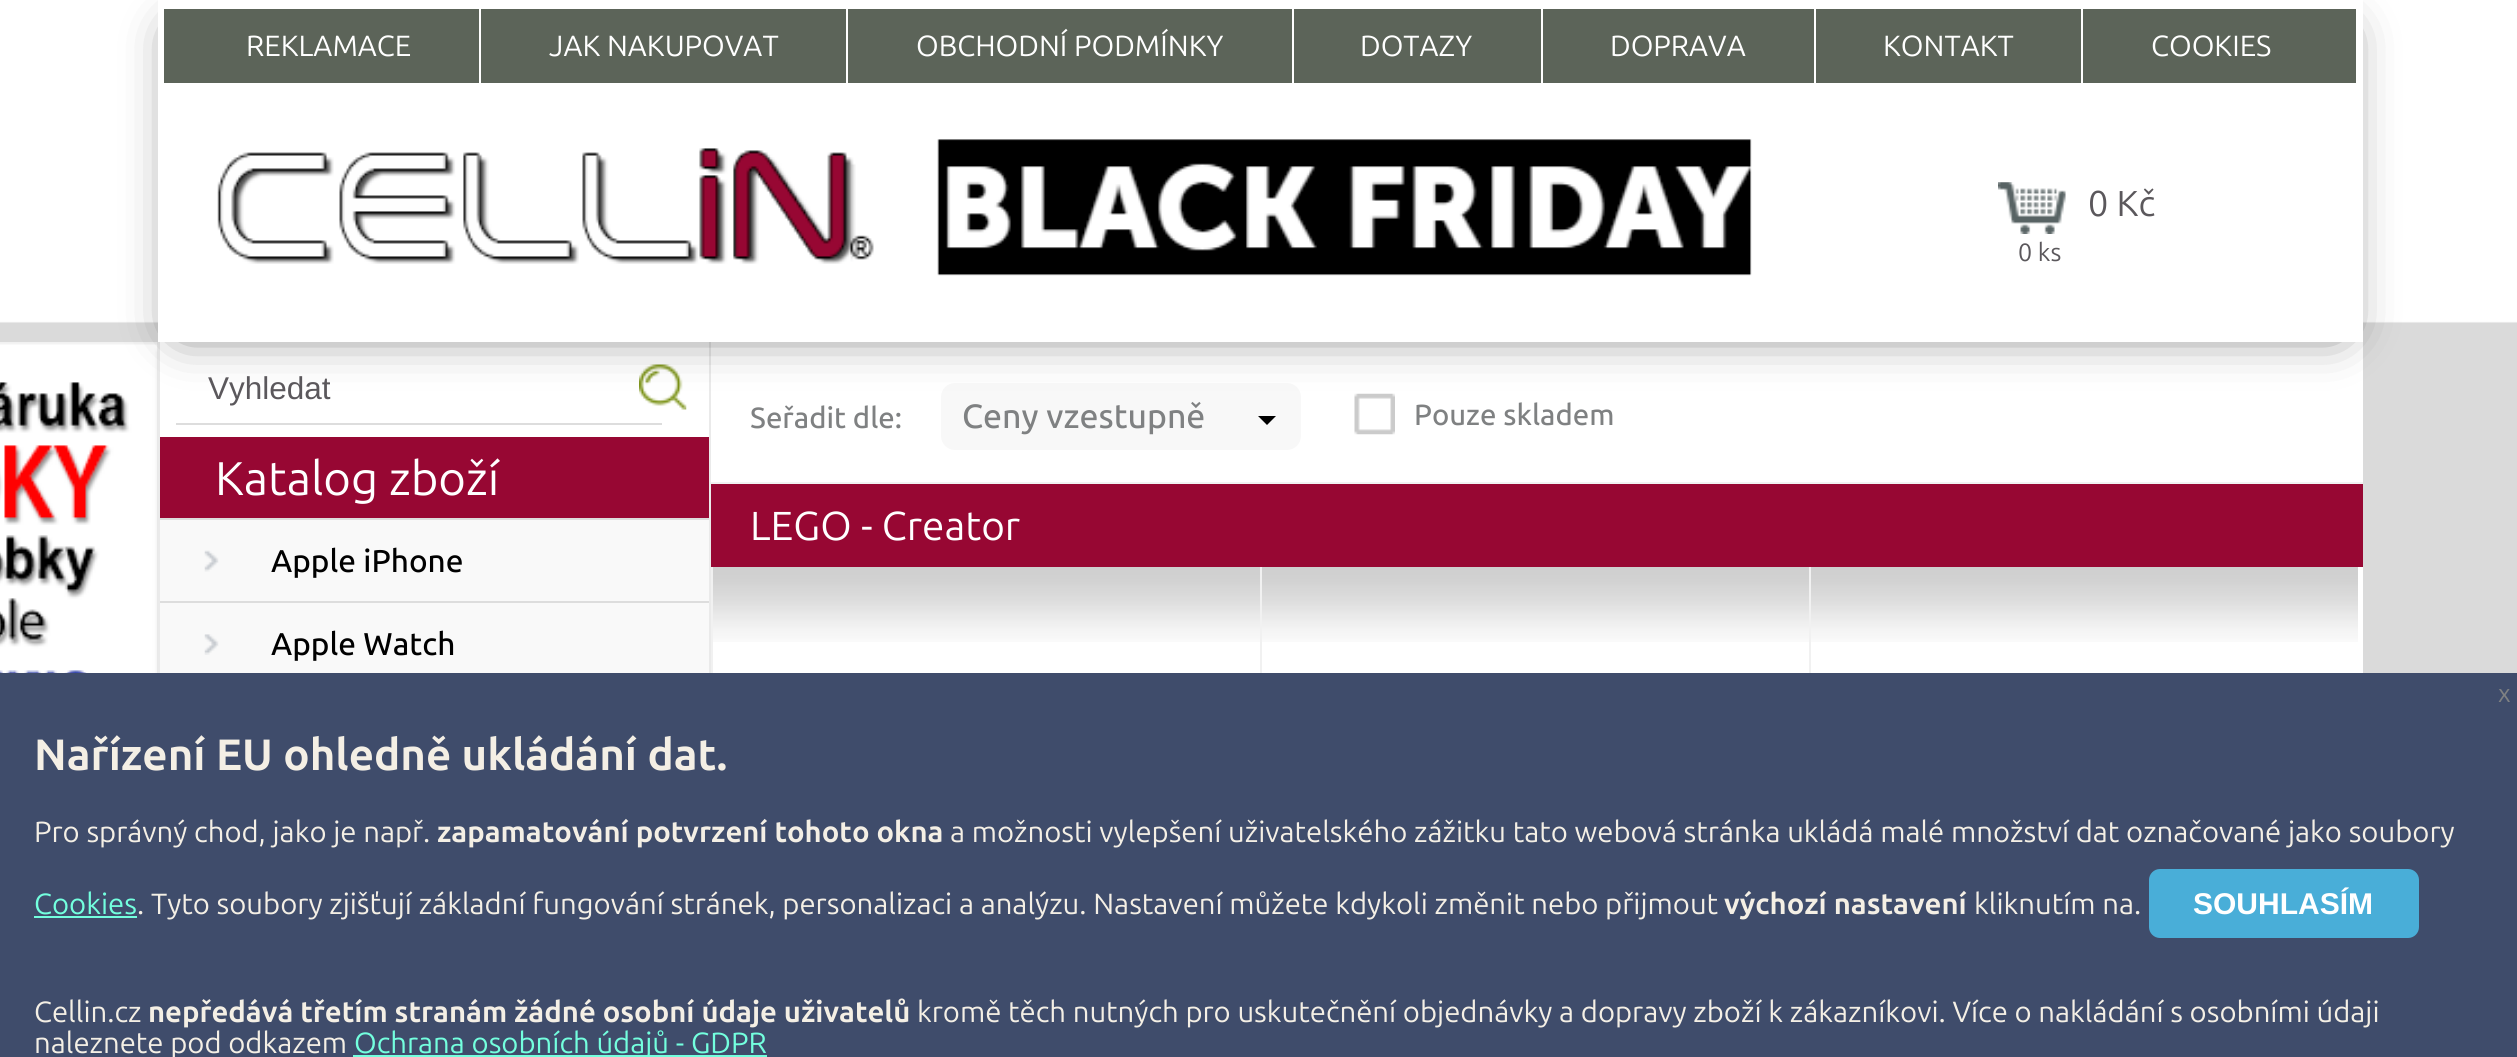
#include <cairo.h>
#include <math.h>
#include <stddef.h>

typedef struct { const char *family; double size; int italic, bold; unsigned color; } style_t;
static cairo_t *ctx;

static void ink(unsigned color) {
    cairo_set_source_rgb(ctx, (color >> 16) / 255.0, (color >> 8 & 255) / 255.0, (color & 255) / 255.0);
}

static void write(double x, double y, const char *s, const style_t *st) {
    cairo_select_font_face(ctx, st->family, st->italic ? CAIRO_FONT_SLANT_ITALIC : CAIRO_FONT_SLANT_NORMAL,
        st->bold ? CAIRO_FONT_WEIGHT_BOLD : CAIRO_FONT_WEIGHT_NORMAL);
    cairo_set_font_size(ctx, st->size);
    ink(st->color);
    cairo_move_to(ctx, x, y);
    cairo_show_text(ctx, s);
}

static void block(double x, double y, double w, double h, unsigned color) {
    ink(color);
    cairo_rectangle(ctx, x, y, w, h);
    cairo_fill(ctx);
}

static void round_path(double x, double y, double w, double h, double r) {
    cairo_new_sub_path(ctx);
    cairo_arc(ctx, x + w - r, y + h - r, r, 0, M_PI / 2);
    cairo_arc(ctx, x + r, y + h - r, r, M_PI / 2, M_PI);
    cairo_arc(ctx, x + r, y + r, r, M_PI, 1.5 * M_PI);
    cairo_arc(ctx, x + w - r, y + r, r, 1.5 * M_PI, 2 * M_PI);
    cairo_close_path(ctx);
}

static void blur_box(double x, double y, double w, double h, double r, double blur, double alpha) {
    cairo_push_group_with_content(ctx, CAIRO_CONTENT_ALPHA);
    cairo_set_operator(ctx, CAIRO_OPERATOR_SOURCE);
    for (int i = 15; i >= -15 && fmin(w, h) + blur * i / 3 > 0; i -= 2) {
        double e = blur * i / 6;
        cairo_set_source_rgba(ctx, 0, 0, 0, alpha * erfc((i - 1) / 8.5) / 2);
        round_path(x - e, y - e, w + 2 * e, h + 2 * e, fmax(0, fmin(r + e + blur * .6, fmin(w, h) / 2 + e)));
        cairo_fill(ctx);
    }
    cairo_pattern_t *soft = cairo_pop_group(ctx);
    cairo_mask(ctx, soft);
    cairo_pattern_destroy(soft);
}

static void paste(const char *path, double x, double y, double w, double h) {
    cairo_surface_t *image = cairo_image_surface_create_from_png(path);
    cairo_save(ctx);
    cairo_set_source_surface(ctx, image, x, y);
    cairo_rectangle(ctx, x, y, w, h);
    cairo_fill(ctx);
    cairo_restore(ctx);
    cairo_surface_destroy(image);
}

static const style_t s1 = {"Ubuntu", 29.25, 0, 0, 0xffffff};
static const style_t s2 = {"Ubuntu", 36, 0, 0, 0x5b585c};
static const style_t s3 = {"Ubuntu", 25, 0, 0, 0x5b585c};
static const style_t s4 = {"Liberation Sans", 31.5, 0, 0, 0x5b585c};
static const style_t s5 = {"Ubuntu", 47.25, 0, 0, 0xffffff};
static const style_t s6 = {"Ubuntu Medium", 31.5, 0, 0, 0x000000};
static const style_t s7 = {"Ubuntu Medium", 29.25, 0, 0, 0x7f8182};
static const style_t s8 = {"Ubuntu Medium", 33.75, 0, 0, 0x7f8182};
static const style_t s9 = {"Ubuntu", 40.5, 0, 0, 0xffffff};
static const style_t s10 = {"Ubuntu", 25, 0, 0, 0x7f8182};
static const style_t s11 = {"Ubuntu", 43.9, 0, 1, 0xf4efe5};
static const style_t s12 = {"Ubuntu", 29.25, 0, 0, 0xf4efe5};
static const style_t s13 = {"Ubuntu", 29.25, 0, 1, 0xf4efe5};
static const style_t s14 = {"Ubuntu", 29.25, 0, 0, 0x73ffde};
static const style_t s15 = {"Liberation Sans", 30, 0, 1, 0xffffff};

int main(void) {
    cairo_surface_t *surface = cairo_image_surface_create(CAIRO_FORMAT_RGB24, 2517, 1057);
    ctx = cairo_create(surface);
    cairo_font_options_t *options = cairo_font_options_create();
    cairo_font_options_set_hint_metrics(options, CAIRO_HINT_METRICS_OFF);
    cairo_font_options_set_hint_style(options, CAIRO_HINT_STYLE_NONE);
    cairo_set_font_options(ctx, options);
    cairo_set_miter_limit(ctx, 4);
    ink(0xffffff);
    cairo_paint(ctx);
    paste("pic1.png", 0, 321, 2517, 352);
    block(158, 321, 2205, 21, 0xffffff);
    block(160, 342, 2203, 331, 0xffffff);
    block(158, 342, 2, 331, 0xeaeaea);
    paste("pic4.png", 0, 342, 158, 331);
    paste("pic5.png", 639, 364, 48, 46);
    block(709, 342, 2, 331, 0xeaeaea);
    ink(0xf8f8f8);
    round_path(941, 383, 360, 67, 14);
    cairo_fill(ctx);
    paste("pic8.png", 1354, 393, 41, 42);
    cairo_save(ctx);
    cairo_set_fill_rule(ctx, CAIRO_FILL_RULE_EVEN_ODD);
    cairo_new_path(ctx);
    cairo_move_to(ctx, 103, 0);
    cairo_line_to(ctx, 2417, 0);
    cairo_line_to(ctx, 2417, 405);
    cairo_line_to(ctx, 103, 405);
    cairo_close_path(ctx);
    cairo_move_to(ctx, 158, 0);
    cairo_line_to(ctx, 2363, 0);
    cairo_line_to(ctx, 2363, 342);
    cairo_line_to(ctx, 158, 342);
    cairo_close_path(ctx);
    cairo_clip(ctx);
    ink(0x000000);
    blur_box(182, 34, 2156, 292, 0, 26, 0.75);
    cairo_restore(ctx);
    block(164, 9, 2192, 74, 0x5c6459);
    block(479, 9, 2, 74, 0xffffff);
    write(246, 56, "REKLAMACE", &s1);
    block(846, 9, 2, 74, 0xffffff);
    write(549, 56, "JAK NAKUPOVAT", &s1);
    block(1292, 9, 2, 74, 0xffffff);
    write(916, 56, "OBCHODNÍ PODMÍNKY", &s1);
    block(1541, 9, 2, 74, 0xffffff);
    write(1360, 56, "DOTAZY", &s1);
    block(1814, 9, 2, 74, 0xffffff);
    write(1610, 56, "DOPRAVA", &s1);
    block(2081, 9, 2, 74, 0xffffff);
    write(1883, 56, "KONTAKT", &s1);
    write(2151, 56, "COOKIES", &s1);
    paste("pic2.png", 217, 139, 1535, 137);
    paste("pic3.png", 1998, 182, 68, 52);
    write(2088, 216, "0 Kč", &s2);
    write(2018, 261, "0 ks", &s3);
    block(176, 423, 486, 2, 0xdddddd);
    write(208, 399, "Vyhledat", &s4);
    block(160, 437, 549, 81, 0x970733);
    write(215, 495, "Katalog zboží", &s5);
    block(160, 520, 549, 81, 0xf9f9f9);
    paste("pic6.png", 204, 550, 15, 22);
    block(160, 518, 549, 2, 0xdddddd);
    write(271, 572, "Apple iPhone", &s6);
    block(160, 603, 549, 70, 0xf9f9f9);
    paste("pic7.png", 204, 634, 15, 21);
    block(160, 601, 549, 2, 0xdddddd);
    write(271, 655, "Apple Watch", &s6);
    block(711, 482, 1652, 2, 0xf1f1f1);
    write(750, 428, "Seřadit dle:", &s7);
    write(962, 428, "Ceny vzestupně", &s8);
    ink(0x000000);
    cairo_new_path(ctx);
    cairo_move_to(ctx, 1258, 416);
    cairo_line_to(ctx, 1276, 416);
    cairo_line_to(ctx, 1267, 425);
    cairo_close_path(ctx);
    cairo_fill(ctx);
    write(1414, 425, "Pouze skladem", &s7);
    block(711, 484, 1652, 83, 0x970733);
    write(750, 540, "LEGO - Creator", &s9);
    paste("pic9.png", 713, 567, 547, 75);
    block(711, 567, 2, 106, 0xf1f1f1);
    paste("pic9.png", 1262, 567, 547, 75);
    block(1260, 567, 2, 106, 0xf1f1f1);
    paste("pic9.png", 1811, 567, 547, 75);
    block(1809, 567, 2, 106, 0xf1f1f1);
    block(0, 673, 2517, 384, 0x3f4c6b);
    write(2498, 702, "x", &s10);
    write(34, 770, "Nařízení EU ohledně ukládání dat.", &s11);
    write(34, 842, "Pro správný chod, jako je např.", &s12);
    write(437, 842, "zapamatování potvrzení tohoto okna", &s13);
    write(950, 842, "a možnosti vylepšení uživatelského zážitku tato webová stránka ukládá malé množství dat označované jako soubory", &s12);
    write(34, 914, "Cookies", &s14);
    block(34, 916, 103, 2, 0x73ffde);
    write(137, 914, ". Tyto soubory zjišťují základní fungování stránek, personalizaci a analýzu. Nastavení můžete kdykoli změnit nebo přijmout", &s12);
    write(1724, 914, "výchozí nastavení", &s13);
    write(1974, 914, "kliknutím na.", &s12);
    ink(0x49aed8);
    round_path(2149, 869, 270, 69, 11);
    cairo_fill(ctx);
    write(2193, 914, "SOUHLASÍM", &s15);
    write(34, 1022, "Cellin.cz", &s12);
    write(148, 1022, "nepředává třetím stranám žádné osobní údaje uživatelů", &s13);
    write(917, 1022, "kromě těch nutných pro uskutečnění objednávky a dopravy zboží k zákazníkovi. Více o nakládání s osobními údaji", &s12);
    write(34, 1053, "naleznete pod odkazem", &s12);
    block(353, 1055, 414, 2, 0x73ffde);
    write(354, 1053, "Ochrana osobních údajů - GDPR", &s14);
    cairo_surface_write_to_png(surface, "screenshot.png");
    cairo_font_options_destroy(options);
    cairo_destroy(ctx);
    cairo_surface_destroy(surface);
    return 0;
}
